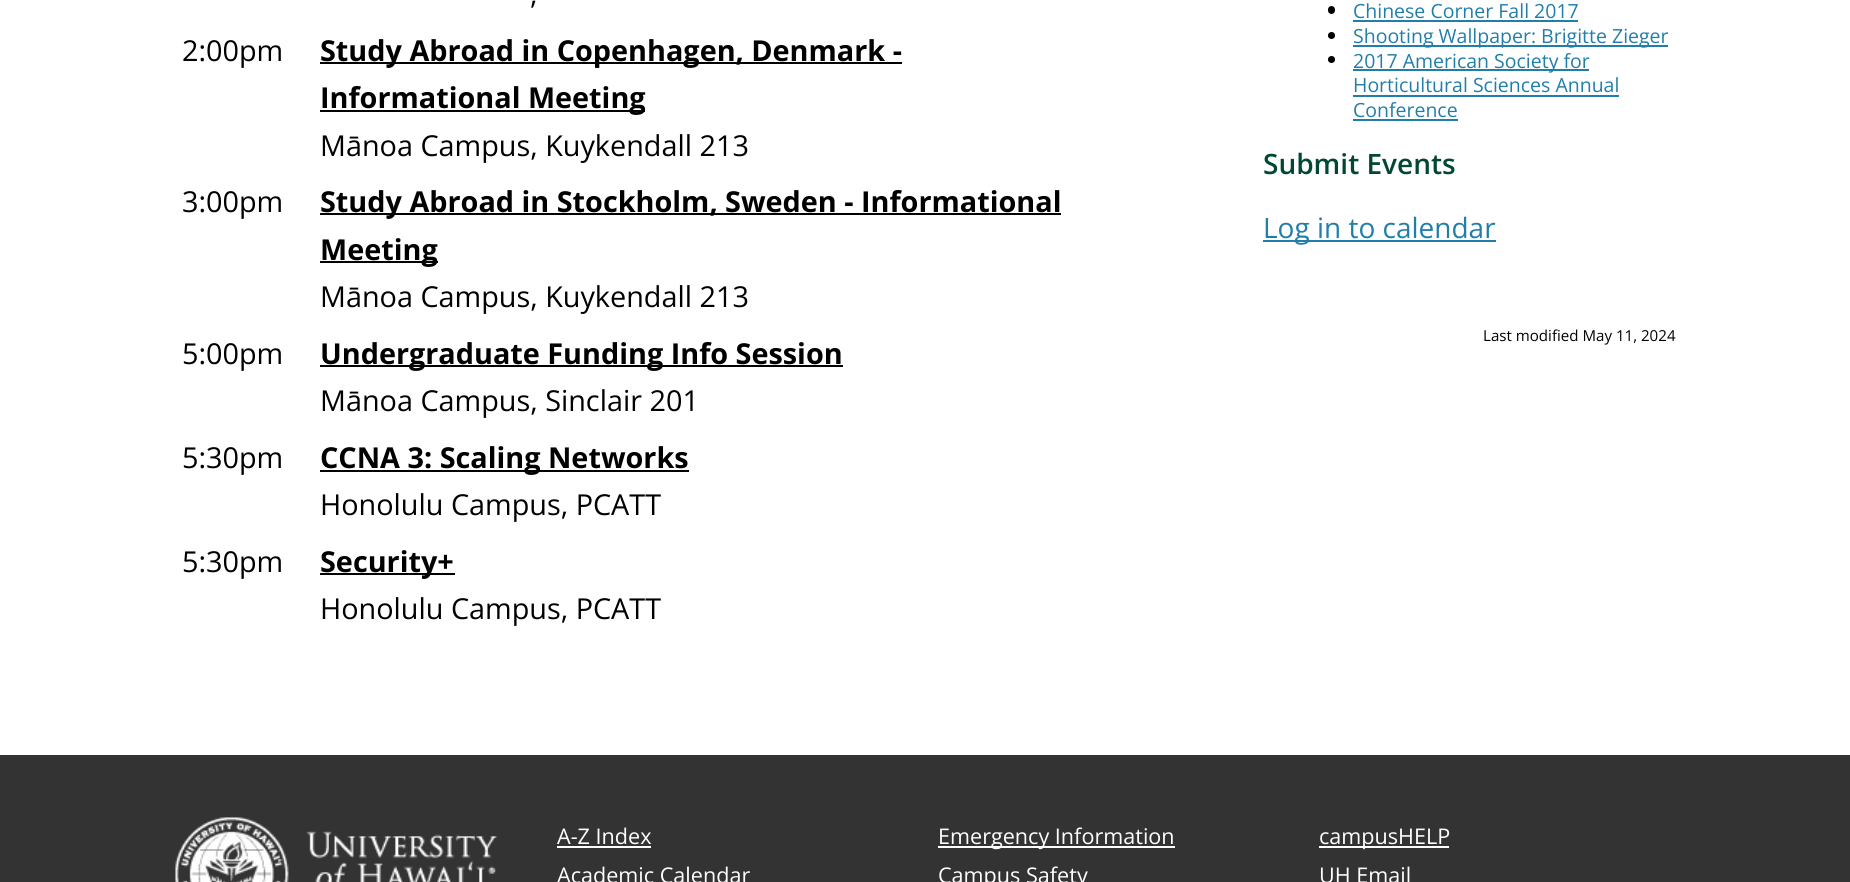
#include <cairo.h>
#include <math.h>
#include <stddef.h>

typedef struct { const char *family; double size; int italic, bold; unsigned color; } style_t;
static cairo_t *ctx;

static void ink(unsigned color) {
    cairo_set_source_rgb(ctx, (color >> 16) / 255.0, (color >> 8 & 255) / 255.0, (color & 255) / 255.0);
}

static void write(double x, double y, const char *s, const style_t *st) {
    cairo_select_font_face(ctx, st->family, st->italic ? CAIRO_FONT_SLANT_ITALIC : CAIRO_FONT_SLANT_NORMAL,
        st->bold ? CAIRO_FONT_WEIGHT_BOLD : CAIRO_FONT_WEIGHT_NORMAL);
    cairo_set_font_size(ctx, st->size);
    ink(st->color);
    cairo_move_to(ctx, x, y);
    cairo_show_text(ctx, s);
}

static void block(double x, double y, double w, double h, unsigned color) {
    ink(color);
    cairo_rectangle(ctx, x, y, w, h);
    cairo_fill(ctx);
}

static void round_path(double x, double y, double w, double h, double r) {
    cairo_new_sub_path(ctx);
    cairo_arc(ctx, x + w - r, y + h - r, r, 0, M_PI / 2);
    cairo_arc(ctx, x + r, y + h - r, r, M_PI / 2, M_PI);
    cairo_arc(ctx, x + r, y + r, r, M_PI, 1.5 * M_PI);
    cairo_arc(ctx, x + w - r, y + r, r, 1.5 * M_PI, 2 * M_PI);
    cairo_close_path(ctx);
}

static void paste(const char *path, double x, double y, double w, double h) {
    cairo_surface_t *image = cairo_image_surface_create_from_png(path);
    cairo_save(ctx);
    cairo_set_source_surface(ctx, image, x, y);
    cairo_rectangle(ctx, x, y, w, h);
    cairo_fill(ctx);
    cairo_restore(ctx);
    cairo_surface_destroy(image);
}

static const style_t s1 = {"Open Sans", 28.8, 0, 0, 0x000000};
static const style_t s2 = {"Open Sans", 28.8, 0, 1, 0x000000};
static const style_t s3 = {"Open Sans", 19.5, 0, 0, 0x217eab};
static const style_t s4 = {"Open Sans SemiBold", 28, 0, 0, 0x024731};
static const style_t s5 = {"Open Sans", 28, 0, 0, 0x217eab};
static const style_t s6 = {"Open Sans", 15.1, 0, 0, 0x000000};
static const style_t s7 = {"Open Sans", 21.6, 0, 0, 0xffffff};

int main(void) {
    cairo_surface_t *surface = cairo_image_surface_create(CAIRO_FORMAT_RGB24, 1850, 882);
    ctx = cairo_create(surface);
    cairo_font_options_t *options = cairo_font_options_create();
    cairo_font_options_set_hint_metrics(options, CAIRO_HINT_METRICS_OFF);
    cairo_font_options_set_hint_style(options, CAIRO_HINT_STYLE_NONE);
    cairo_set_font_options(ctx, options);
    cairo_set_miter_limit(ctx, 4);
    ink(0xffffff);
    cairo_paint(ctx);
    write(530, 4, ",", &s1);
    write(182, 61, "2:00pm", &s1);
    block(320, 62, 582, 2, 0x000000);
    write(320, 61, "Study Abroad in Copenhagen, Denmark -", &s2);
    block(320, 110, 325, 2, 0x000000);
    write(320, 108, "Informational Meeting", &s2);
    write(320, 156, "Mānoa Campus, Kuykendall 213", &s1);
    write(182, 212, "3:00pm", &s1);
    block(320, 213, 741, 2, 0x000000);
    write(320, 212, "Study Abroad in Stockholm, Sweden - Informational", &s2);
    block(320, 261, 118, 2, 0x000000);
    write(320, 260, "Meeting", &s2);
    write(320, 307, "Mānoa Campus, Kuykendall 213", &s1);
    write(182, 364, "5:00pm", &s1);
    block(320, 365, 523, 2, 0x000000);
    write(320, 364, "Undergraduate Funding Info Session", &s2);
    write(320, 411, "Mānoa Campus, Sinclair 201", &s1);
    write(182, 468, "5:30pm", &s1);
    block(320, 470, 369, 2, 0x000000);
    write(320, 468, "CCNA 3: Scaling Networks", &s2);
    write(320, 515, "Honolulu Campus, PCATT", &s1);
    write(182, 572, "5:30pm", &s1);
    block(320, 573, 135, 2, 0x000000);
    write(320, 572, "Security+", &s2);
    write(320, 619, "Honolulu Campus, PCATT", &s1);
    round_path(1328, 6, 7, 8, 3.5);
    cairo_fill(ctx);
    write(1353, 18, "Chinese Corner Fall 2017", &s3);
    block(1353, 20, 225, 2, 0x217eab);
    ink(0x000000);
    cairo_new_path(ctx);
    cairo_arc(ctx, 1331.5, 35.5, 3.5, 0, 2 * M_PI);
    cairo_fill(ctx);
    block(1353, 45, 315, 2, 0x217eab);
    write(1353, 43, "Shooting Wallpaper: Brigitte Zieger", &s3);
    ink(0x000000);
    cairo_new_path(ctx);
    cairo_arc(ctx, 1331.5, 59.5, 3.5, 0, 2 * M_PI);
    cairo_fill(ctx);
    block(1353, 69, 236, 2, 0x217eab);
    write(1353, 68, "2017 American Society for", &s3);
    write(1353, 92, "Horticultural Sciences Annual", &s3);
    block(1353, 95, 266, 2, 0x217eab);
    write(1353, 117, "Conference", &s3);
    block(1353, 119, 105, 2, 0x217eab);
    write(1263, 174, "Submit Events", &s4);
    block(1263, 240, 233, 2, 0x217eab);
    write(1263, 238, "Log in to calendar", &s5);
    write(1483, 341, "Last modified May 11, 2024", &s6);
    block(0, 755, 1850, 127, 0x333333);
    paste("pic1.png", 175, 817, 322, 65);
    write(557, 844, "A-Z Index", &s7);
    block(557, 846, 94, 2, 0xffffff);
    write(557, 883, "Academic Calendar", &s7);
    block(938, 846, 237, 2, 0xffffff);
    write(938, 844, "Emergency Information", &s7);
    write(938, 883, "Campus Safety", &s7);
    block(1319, 846, 130, 2, 0xffffff);
    write(1319, 844, "campusHELP", &s7);
    write(1319, 883, "UH Email", &s7);
    cairo_surface_write_to_png(surface, "screenshot.png");
    cairo_font_options_destroy(options);
    cairo_destroy(ctx);
    cairo_surface_destroy(surface);
    return 0;
}
